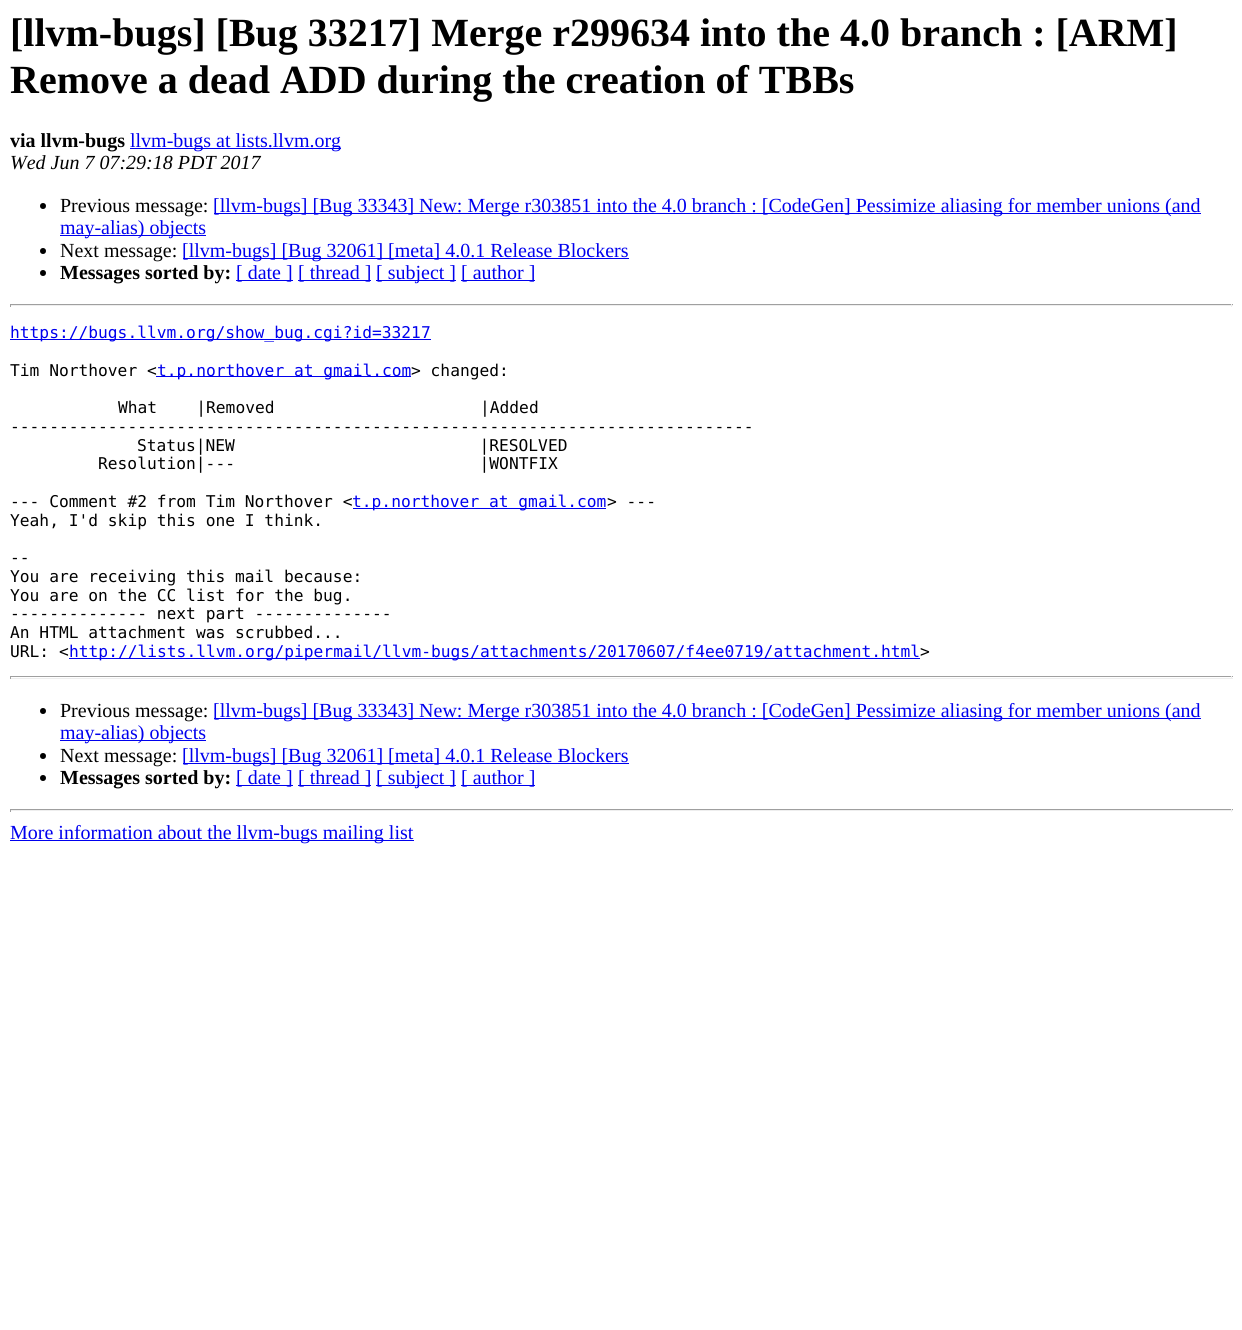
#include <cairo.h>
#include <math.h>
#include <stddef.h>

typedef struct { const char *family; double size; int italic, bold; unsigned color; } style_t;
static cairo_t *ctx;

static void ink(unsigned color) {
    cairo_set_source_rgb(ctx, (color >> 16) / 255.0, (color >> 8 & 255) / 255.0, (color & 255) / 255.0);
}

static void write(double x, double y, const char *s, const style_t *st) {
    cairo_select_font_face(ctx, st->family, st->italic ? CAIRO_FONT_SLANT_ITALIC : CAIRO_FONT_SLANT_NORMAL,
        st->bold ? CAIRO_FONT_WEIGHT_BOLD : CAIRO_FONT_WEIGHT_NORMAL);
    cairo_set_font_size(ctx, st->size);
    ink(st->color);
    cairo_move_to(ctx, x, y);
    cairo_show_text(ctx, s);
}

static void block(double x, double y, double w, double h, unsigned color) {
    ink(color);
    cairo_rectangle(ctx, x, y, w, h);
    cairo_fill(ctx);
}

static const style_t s1 = {"Liberation Serif", 40, 0, 1, 0x000000};
static const style_t s2 = {"Liberation Serif", 20, 0, 1, 0x000000};
static const style_t s3 = {"Liberation Serif", 20, 0, 0, 0x0000ee};
static const style_t s4 = {"Liberation Serif", 20, 1, 0, 0x000000};
static const style_t s5 = {"Liberation Serif", 20, 0, 0, 0x000000};
static const style_t s6 = {"DejaVu Sans Mono", 16.25, 0, 0, 0x0000ee};
static const style_t s7 = {"DejaVu Sans Mono", 16.25, 0, 0, 0x000000};

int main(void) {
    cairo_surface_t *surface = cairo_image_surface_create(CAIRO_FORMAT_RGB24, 1242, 1330);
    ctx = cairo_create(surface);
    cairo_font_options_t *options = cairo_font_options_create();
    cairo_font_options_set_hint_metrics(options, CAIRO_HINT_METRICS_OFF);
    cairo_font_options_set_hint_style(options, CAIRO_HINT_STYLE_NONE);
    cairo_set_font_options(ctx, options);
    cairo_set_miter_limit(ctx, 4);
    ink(0xffffff);
    cairo_paint(ctx);
    write(10, 46, "[llvm-bugs] [Bug 33217] Merge r299634 into the 4.0 branch : [ARM]", &s1);
    write(10, 93, "Remove a dead ADD during the creation of TBBs", &s1);
    write(10, 147, "via llvm-bugs", &s2);
    block(130, 148, 211, 1, 0x0000ee);
    write(130, 147, "llvm-bugs at lists.llvm.org", &s3);
    write(10, 169, "Wed Jun 7 07:29:18 PDT 2017", &s4);
    cairo_new_path(ctx);
    cairo_arc(ctx, 43, 206, 3, 0, 2 * M_PI);
    cairo_fill(ctx);
    write(60, 212, "Previous message:", &s5);
    block(214, 213, 987, 1, 0x0000ee);
    write(213, 212, "[llvm-bugs] [Bug 33343] New: Merge r303851 into the 4.0 branch : [CodeGen] Pessimize aliasing for member unions (and", &s3);
    block(60, 235, 146, 1, 0x0000ee);
    write(60, 234, "may-alias) objects", &s3);
    ink(0x000000);
    cairo_new_path(ctx);
    cairo_arc(ctx, 43, 251, 3, 0, 2 * M_PI);
    cairo_fill(ctx);
    write(60, 257, "Next message:", &s5);
    block(183, 258, 446, 1, 0x0000ee);
    write(182, 257, "[llvm-bugs] [Bug 32061] [meta] 4.0.1 Release Blockers", &s3);
    ink(0x000000);
    cairo_new_path(ctx);
    cairo_arc(ctx, 43, 273, 3, 0, 2 * M_PI);
    cairo_fill(ctx);
    write(60, 279, "Messages sorted by:", &s2);
    block(236, 280, 57, 1, 0x0000ee);
    write(236, 279, "[ date ]", &s3);
    block(298, 280, 73, 1, 0x0000ee);
    write(298, 279, "[ thread ]", &s3);
    block(376, 280, 80, 1, 0x0000ee);
    write(376, 279, "[ subject ]", &s3);
    block(461, 280, 74, 1, 0x0000ee);
    write(461, 279, "[ author ]", &s3);
    block(10, 304, 1223, 1, 0x9f9f9f);
    block(1231, 304, 1, 3, 0xeeeeee);
    block(10, 305, 1223, 1, 0xeeeeee);
    block(10, 304, 1, 3, 0x9f9f9f);
    block(10, 339, 421, 1, 0x0000ee);
    write(10, 338, "https://bugs.llvm.org/show_bug.cgi?id=33217", &s6);
    write(10, 376, "Tim Northover <", &s7);
    block(156, 376, 255, 1, 0x0000ee);
    write(157, 376, "t.p.northover at gmail.com", &s6);
    write(411, 376, "> changed:", &s7);
    write(118, 413, "What    |Removed                     |Added", &s7);
    write(10, 432, "----------------------------------------------------------------------------", &s7);
    write(137, 451, "Status|NEW                         |RESOLVED", &s7);
    write(98, 469, "Resolution|---                         |WONTFIX", &s7);
    write(10, 507, "--- Comment #2 from Tim Northover <", &s7);
    block(353, 508, 253, 1, 0x0000ee);
    write(352, 507, "t.p.northover at gmail.com", &s6);
    write(607, 507, "> ---", &s7);
    write(10, 526, "Yeah, I'd skip this one I think.", &s7);
    write(10, 563, "--", &s7);
    write(10, 582, "You are receiving this mail because:", &s7);
    write(10, 601, "You are on the CC list for the bug.", &s7);
    write(10, 619, "-------------- next part --------------", &s7);
    write(10, 638, "An HTML attachment was scrubbed...", &s7);
    write(10, 657, "URL: <", &s7);
    block(69, 658, 851, 1, 0x0000ee);
    write(69, 657, "http://lists.llvm.org/pipermail/llvm-bugs/attachments/20170607/f4ee0719/attachment.html", &s6);
    write(920, 657, ">", &s7);
    block(10, 676, 1223, 1, 0x9f9f9f);
    block(1231, 676, 1, 3, 0xeeeeee);
    block(10, 678, 1223, 1, 0xeeeeee);
    block(10, 676, 1, 3, 0x9f9f9f);
    ink(0x000000);
    cairo_new_path(ctx);
    cairo_arc(ctx, 43, 711, 3, 0, 2 * M_PI);
    cairo_fill(ctx);
    write(60, 717, "Previous message:", &s5);
    block(214, 718, 987, 1, 0x0000ee);
    write(213, 717, "[llvm-bugs] [Bug 33343] New: Merge r303851 into the 4.0 branch : [CodeGen] Pessimize aliasing for member unions (and", &s3);
    block(60, 740, 146, 1, 0x0000ee);
    write(60, 739, "may-alias) objects", &s3);
    ink(0x000000);
    cairo_new_path(ctx);
    cairo_arc(ctx, 43, 756, 3, 0, 2 * M_PI);
    cairo_fill(ctx);
    write(60, 762, "Next message:", &s5);
    block(183, 763, 446, 1, 0x0000ee);
    write(182, 762, "[llvm-bugs] [Bug 32061] [meta] 4.0.1 Release Blockers", &s3);
    ink(0x000000);
    cairo_new_path(ctx);
    cairo_arc(ctx, 43, 778, 3, 0, 2 * M_PI);
    cairo_fill(ctx);
    write(60, 784, "Messages sorted by:", &s2);
    block(236, 785, 57, 1, 0x0000ee);
    write(236, 784, "[ date ]", &s3);
    block(298, 785, 73, 1, 0x0000ee);
    write(298, 784, "[ thread ]", &s3);
    block(376, 785, 80, 1, 0x0000ee);
    write(376, 784, "[ subject ]", &s3);
    block(461, 785, 74, 1, 0x0000ee);
    write(461, 784, "[ author ]", &s3);
    block(10, 809, 1223, 1, 0x9f9f9f);
    block(1231, 809, 1, 3, 0xeeeeee);
    block(10, 810, 1223, 1, 0xeeeeee);
    block(10, 809, 1, 3, 0x9f9f9f);
    block(10, 840, 404, 1, 0x0000ee);
    write(10, 839, "More information about the llvm-bugs mailing list", &s3);
    cairo_surface_write_to_png(surface, "screenshot.png");
    cairo_font_options_destroy(options);
    cairo_destroy(ctx);
    cairo_surface_destroy(surface);
    return 0;
}
